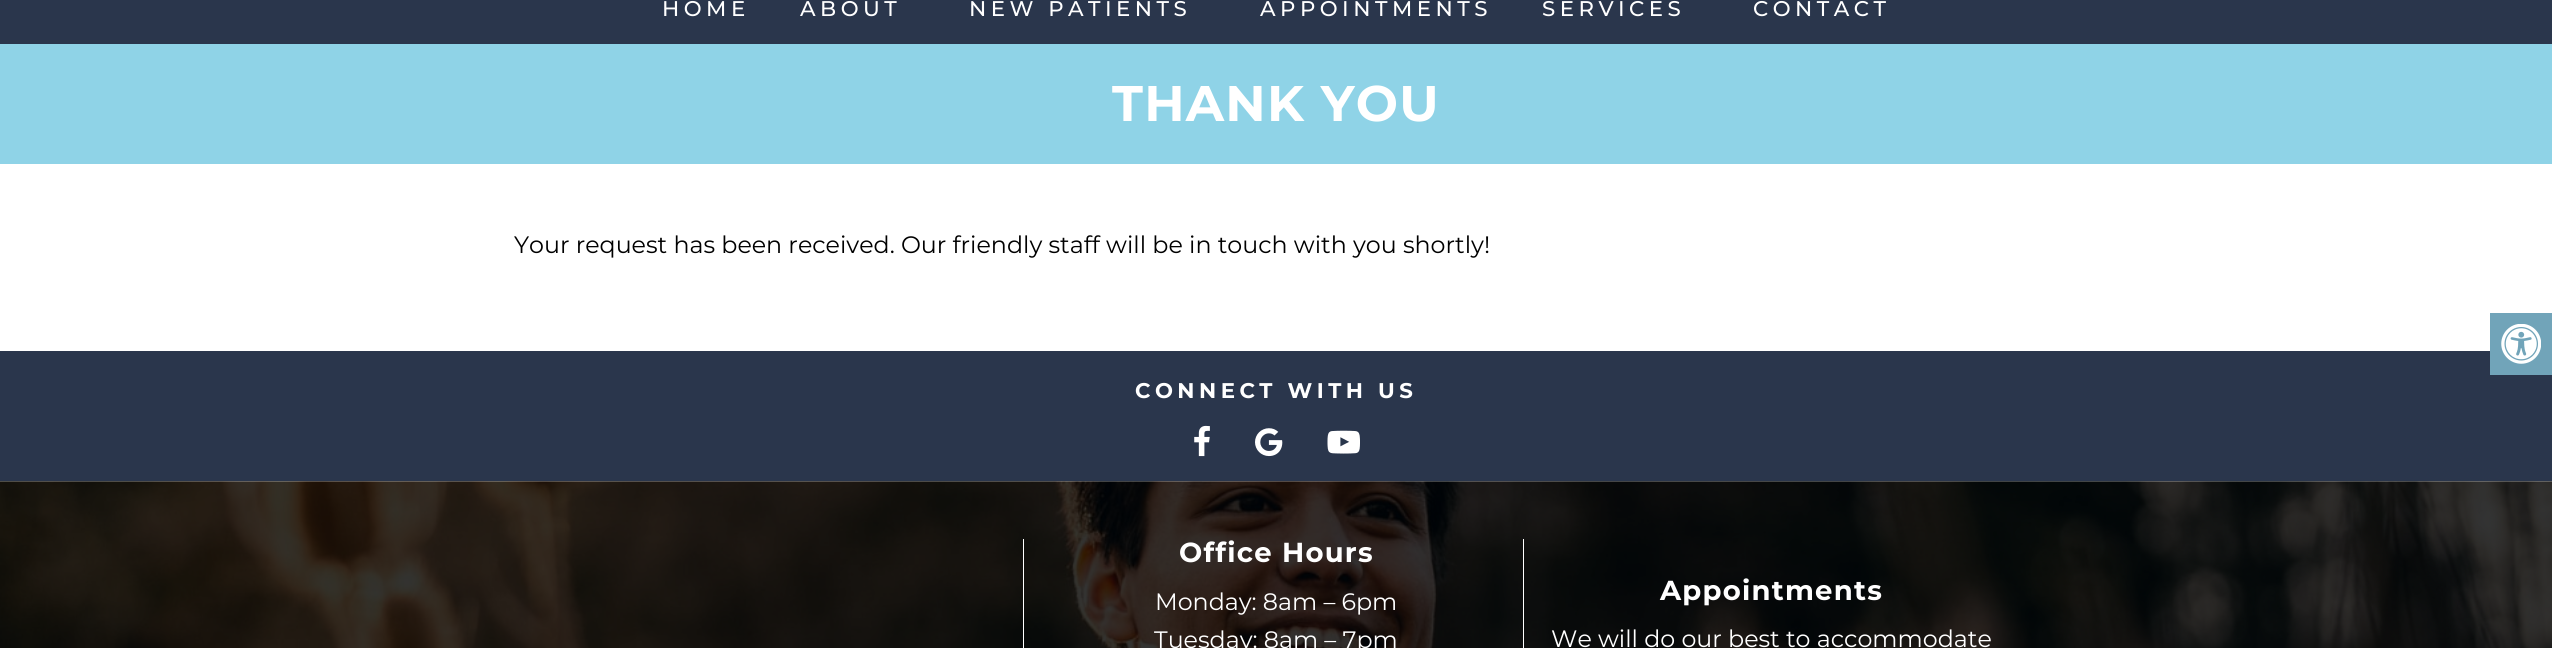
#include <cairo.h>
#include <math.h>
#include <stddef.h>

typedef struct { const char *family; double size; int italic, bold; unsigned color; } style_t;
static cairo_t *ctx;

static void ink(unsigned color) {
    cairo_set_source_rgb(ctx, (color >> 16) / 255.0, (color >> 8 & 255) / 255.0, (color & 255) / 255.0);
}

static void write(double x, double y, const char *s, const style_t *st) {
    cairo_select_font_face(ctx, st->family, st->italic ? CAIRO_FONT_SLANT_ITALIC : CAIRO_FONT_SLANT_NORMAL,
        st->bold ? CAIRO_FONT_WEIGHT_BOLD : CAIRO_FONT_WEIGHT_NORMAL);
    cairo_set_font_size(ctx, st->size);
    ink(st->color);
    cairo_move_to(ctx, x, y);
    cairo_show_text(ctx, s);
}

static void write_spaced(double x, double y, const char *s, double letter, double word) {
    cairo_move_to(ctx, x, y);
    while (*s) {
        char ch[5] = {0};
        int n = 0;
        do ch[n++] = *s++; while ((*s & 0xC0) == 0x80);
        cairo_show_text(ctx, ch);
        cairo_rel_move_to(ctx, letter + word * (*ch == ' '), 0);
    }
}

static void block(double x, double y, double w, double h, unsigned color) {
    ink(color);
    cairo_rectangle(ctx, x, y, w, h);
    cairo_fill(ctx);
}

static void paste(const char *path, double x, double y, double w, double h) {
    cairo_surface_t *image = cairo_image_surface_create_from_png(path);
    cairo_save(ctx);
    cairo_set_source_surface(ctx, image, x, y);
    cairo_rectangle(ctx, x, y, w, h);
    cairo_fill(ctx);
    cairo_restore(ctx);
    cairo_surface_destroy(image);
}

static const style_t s1 = {"Montserrat", 23.75, 0, 0, 0x000000};
static const style_t s2 = {"Montserrat", 23.75, 0, 0, 0xffffff};

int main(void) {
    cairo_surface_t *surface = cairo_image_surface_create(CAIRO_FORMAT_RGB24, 2552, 648);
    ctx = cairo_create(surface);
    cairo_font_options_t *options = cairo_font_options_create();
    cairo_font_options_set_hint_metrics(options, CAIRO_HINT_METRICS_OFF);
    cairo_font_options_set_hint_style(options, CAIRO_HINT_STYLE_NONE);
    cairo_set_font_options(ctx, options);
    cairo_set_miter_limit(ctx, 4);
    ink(0xffffff);
    cairo_paint(ctx);
    block(0, 0, 2552, 44, 0x2a364c);
    cairo_select_font_face(ctx, "Montserrat Medium", CAIRO_FONT_SLANT_NORMAL, CAIRO_FONT_WEIGHT_NORMAL);
    cairo_set_font_size(ctx, 21.25);
    ink(0xffffff);
    write_spaced(662, 16, "HOME", 4.5, 0);
    write_spaced(800, 16, "ABOUT", 4.5, 0);
    write_spaced(969, 16, "NEW PATIENTS", 4.5, 0);
    write_spaced(1260, 16, "APPOINTMENTS", 4.5, 0);
    write_spaced(1542, 16, "SERVICES", 4.5, 0);
    write_spaced(1753, 16, "CONTACT", 4.5, 0);
    block(0, 44, 2552, 120, 0x8fd3e7);
    cairo_select_font_face(ctx, "Montserrat", CAIRO_FONT_SLANT_NORMAL, CAIRO_FONT_WEIGHT_BOLD);
    cairo_set_font_size(ctx, 50);
    ink(0xffffff);
    write_spaced(1112, 121, "THANK YOU", 1.25, 0);
    write(514, 253, "Your request has been received. Our friendly staff will be in touch with you shortly!", &s1);
    block(0, 351, 2552, 130, 0x2a364c);
    cairo_select_font_face(ctx, "Montserrat", CAIRO_FONT_SLANT_NORMAL, CAIRO_FONT_WEIGHT_BOLD);
    cairo_set_font_size(ctx, 21.25);
    ink(0xffffff);
    write_spaced(1135, 398, "CONNECT WITH US", 4.5, 0);
    paste("pic1.png", 1194, 425, 16, 32);
    paste("pic2.png", 1255, 428, 28, 29);
    paste("pic3.png", 1327, 430, 33, 24);
    paste("pic4.png", 0, 481, 2552, 167);
    block(1023, 539, 1, 109, 0xffffff);
    cairo_set_font_size(ctx, 27.5);
    write_spaced(1179, 562, "Office Hours", 1.25, 0);
    block(1523, 539, 1, 109, 0xffffff);
    write(1155, 610, "Monday: 8am – 6pm", &s2);
    write(1154, 648, "Tuesday: 8am – 7pm", &s2);
    cairo_select_font_face(ctx, "Montserrat", CAIRO_FONT_SLANT_NORMAL, CAIRO_FONT_WEIGHT_BOLD);
    cairo_set_font_size(ctx, 27.5);
    write_spaced(1660, 600, "Appointments", 1.25, 0);
    write(1551, 647, "We will do our best to accommodate", &s2);
    block(2490, 313, 62, 62, 0x71a4b9);
    paste("pic5.png", 2501, 324, 40, 40);
    cairo_surface_write_to_png(surface, "screenshot.png");
    cairo_font_options_destroy(options);
    cairo_destroy(ctx);
    cairo_surface_destroy(surface);
    return 0;
}
